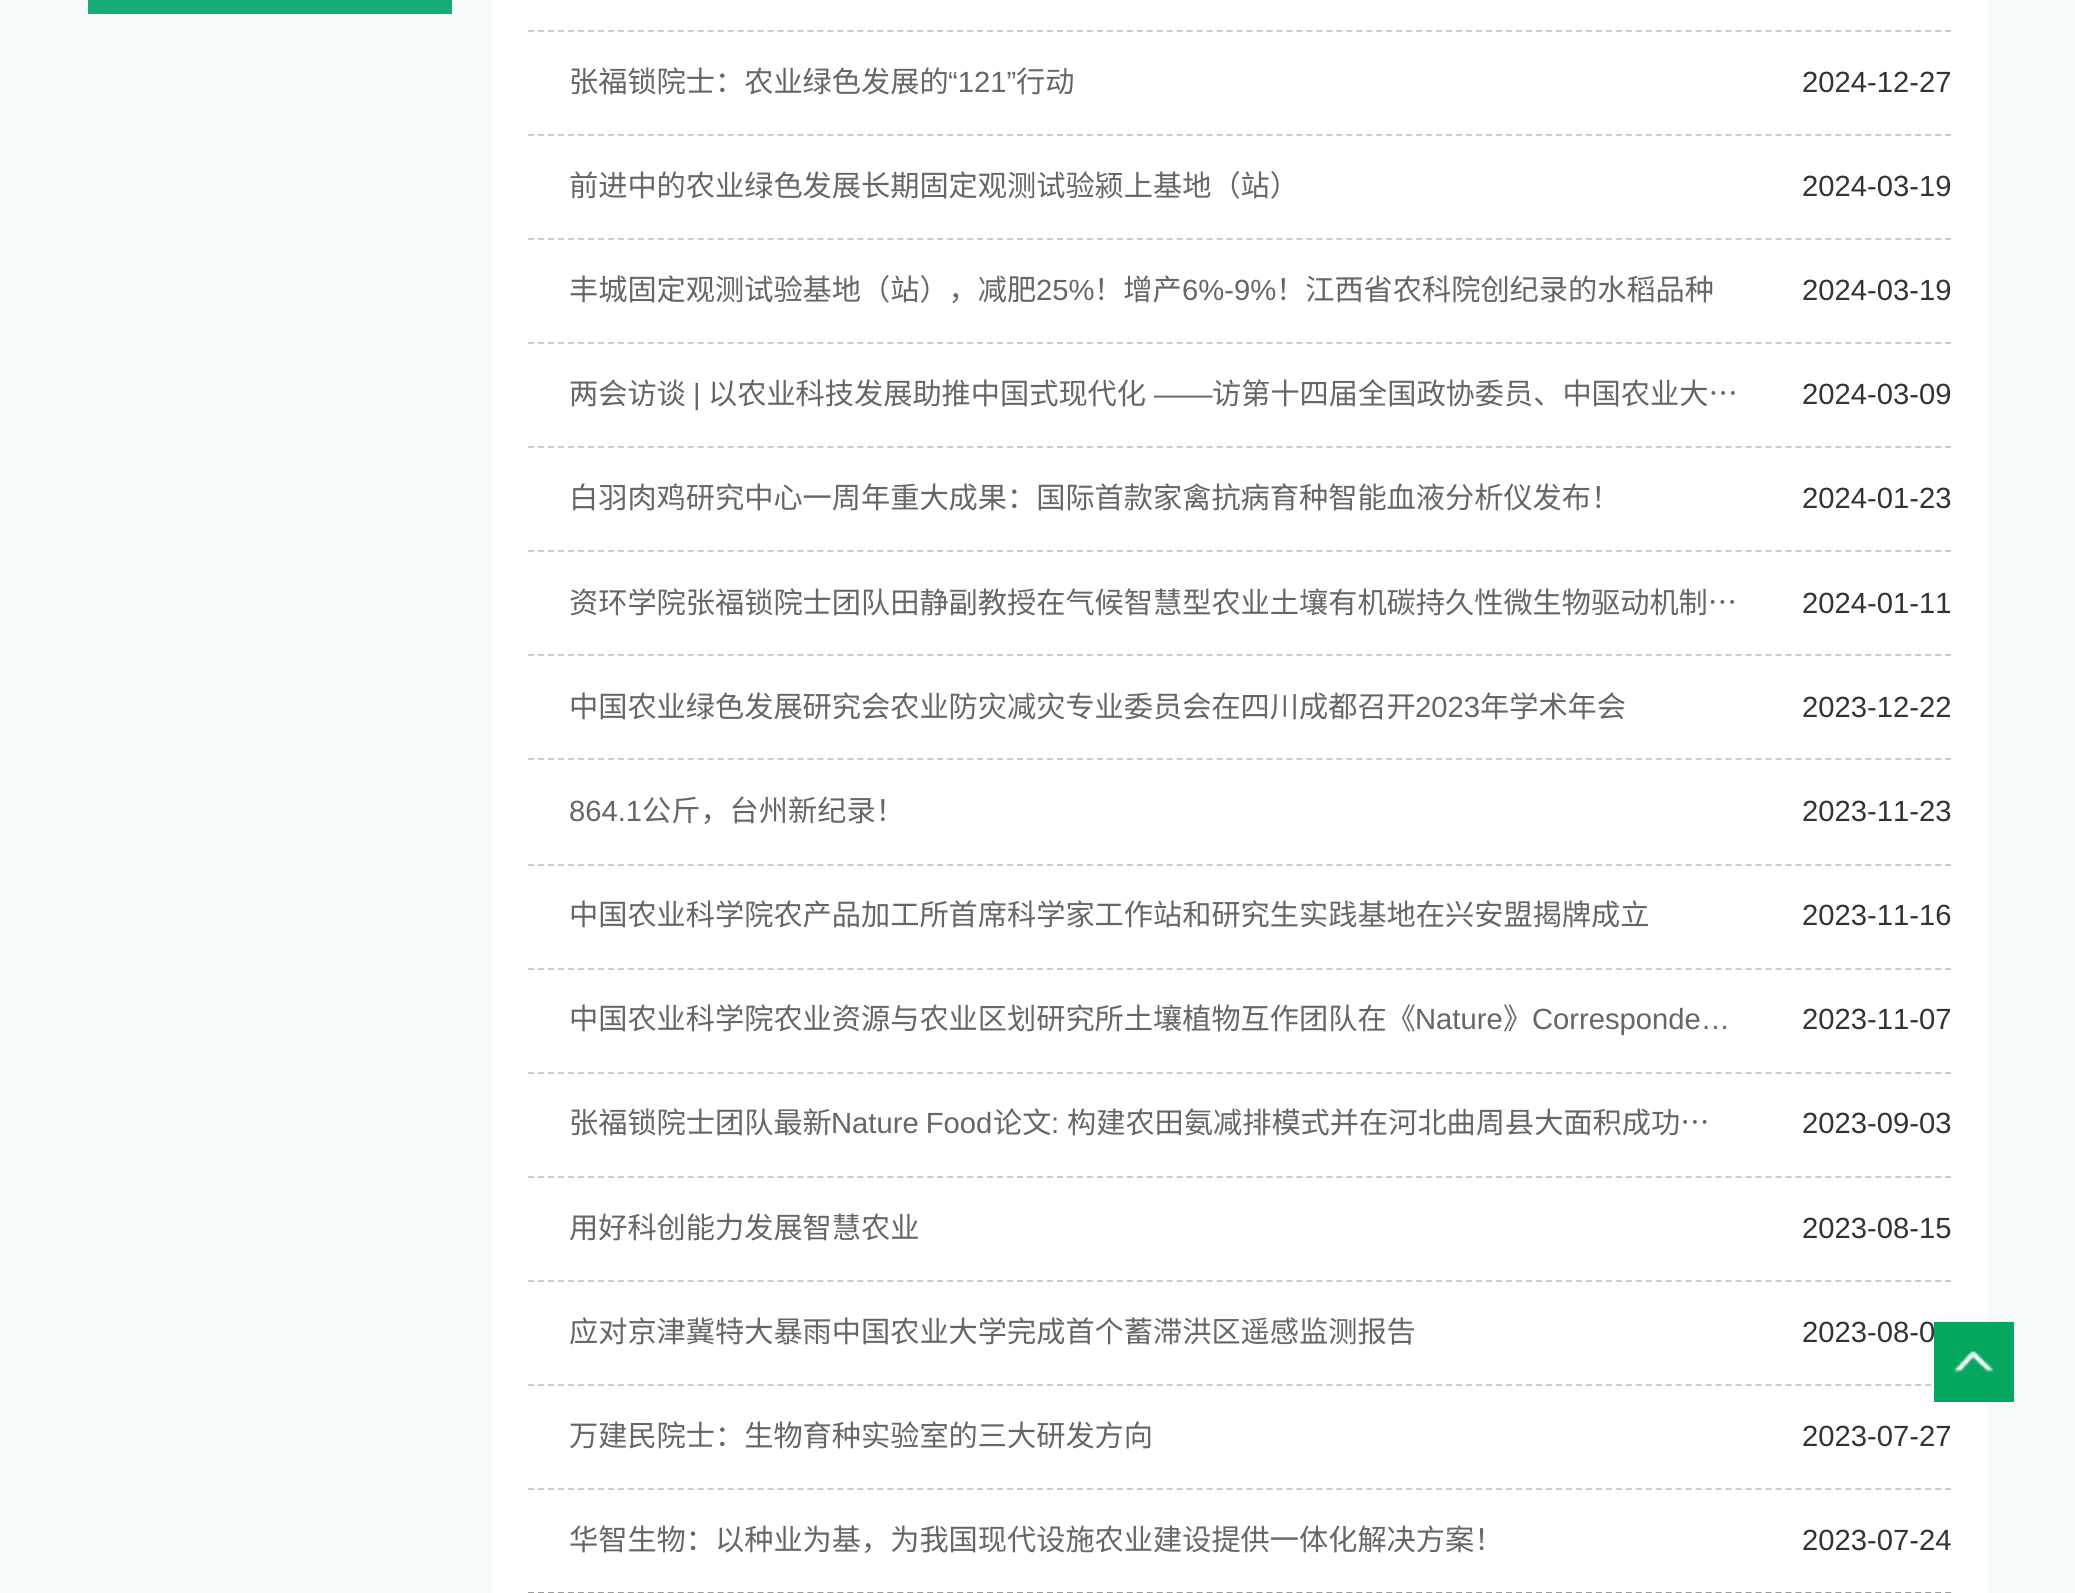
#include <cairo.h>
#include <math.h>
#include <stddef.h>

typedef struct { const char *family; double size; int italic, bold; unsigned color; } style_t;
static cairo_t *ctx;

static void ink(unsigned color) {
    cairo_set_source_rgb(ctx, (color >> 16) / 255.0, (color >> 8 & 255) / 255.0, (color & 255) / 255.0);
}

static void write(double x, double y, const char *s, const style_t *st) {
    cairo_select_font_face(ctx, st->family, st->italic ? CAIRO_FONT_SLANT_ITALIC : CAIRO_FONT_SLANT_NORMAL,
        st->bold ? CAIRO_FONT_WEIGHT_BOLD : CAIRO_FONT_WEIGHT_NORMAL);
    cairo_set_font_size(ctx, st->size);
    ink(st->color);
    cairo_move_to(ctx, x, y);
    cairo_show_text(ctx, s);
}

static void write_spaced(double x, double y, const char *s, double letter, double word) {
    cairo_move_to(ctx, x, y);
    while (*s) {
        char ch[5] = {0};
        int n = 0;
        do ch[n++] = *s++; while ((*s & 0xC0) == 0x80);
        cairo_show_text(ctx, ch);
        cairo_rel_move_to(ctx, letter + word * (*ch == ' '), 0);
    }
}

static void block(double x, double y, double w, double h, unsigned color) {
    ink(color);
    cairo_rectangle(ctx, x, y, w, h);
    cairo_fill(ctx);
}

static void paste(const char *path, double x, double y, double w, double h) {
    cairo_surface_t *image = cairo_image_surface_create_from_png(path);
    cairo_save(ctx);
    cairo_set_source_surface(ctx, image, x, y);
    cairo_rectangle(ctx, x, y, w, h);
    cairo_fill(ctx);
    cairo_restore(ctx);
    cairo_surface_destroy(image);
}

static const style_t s1 = {"Noto Sans CJK SC", 29.2, 0, 0, 0x666666};
static const style_t s2 = {"Liberation Sans", 29.2, 0, 0, 0x666666};
static const style_t s3 = {"Liberation Sans", 29.2, 0, 0, 0x333333};

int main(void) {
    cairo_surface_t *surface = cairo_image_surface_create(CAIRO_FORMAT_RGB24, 2075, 1593);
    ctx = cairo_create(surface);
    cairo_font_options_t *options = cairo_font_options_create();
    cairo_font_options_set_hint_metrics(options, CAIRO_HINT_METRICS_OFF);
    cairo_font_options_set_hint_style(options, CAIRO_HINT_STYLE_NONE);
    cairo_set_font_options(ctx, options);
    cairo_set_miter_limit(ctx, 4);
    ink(0xf7fafa);
    cairo_paint(ctx);
    block(88, 0, 364, 14, 0x16ac74);
    block(492, 0, 1496, 1593, 0xffffff);
    cairo_new_path(ctx);
    cairo_move_to(ctx, 528, 1593);
    cairo_line_to(ctx, 1952, 1593);
    ink(0x9c9c9a);
    cairo_set_dash(ctx, (double[]){6, 3.98}, 2, 0);
    cairo_stroke(ctx);
    cairo_new_path(ctx);
    cairo_move_to(ctx, 528, 31);
    cairo_line_to(ctx, 1952, 31);
    ink(0xcccccc);
    cairo_stroke(ctx);
    cairo_new_path(ctx);
    cairo_move_to(ctx, 528, 135);
    cairo_line_to(ctx, 1952, 135);
    cairo_stroke(ctx);
    write(569, 92, "张福锁院士：农业绿色发展的", &s1);
    write(948, 92, "“121”", &s2);
    write(1016, 92, "行动", &s1);
    write(1802, 92, "2024-12-27", &s3);
    cairo_new_path(ctx);
    cairo_move_to(ctx, 528, 239);
    cairo_line_to(ctx, 1952, 239);
    ink(0xcccccc);
    cairo_stroke(ctx);
    write(569, 196, "前进中的农业绿色发展长期固定观测试验颍上基地（站）", &s1);
    write(1802, 196, "2024-03-19", &s3);
    cairo_new_path(ctx);
    cairo_move_to(ctx, 528, 343);
    cairo_line_to(ctx, 1952, 343);
    ink(0xcccccc);
    cairo_stroke(ctx);
    write(569, 300, "丰城固定观测试验基地（站），减肥", &s1);
    write(1036, 300, "25%", &s2);
    write(1094, 300, "！增产", &s1);
    write(1182, 300, "6%-9%", &s2);
    write(1276, 300, "！江西省农科院创纪录的水稻品种", &s1);
    write(1802, 300, "2024-03-19", &s3);
    cairo_new_path(ctx);
    cairo_move_to(ctx, 528, 447);
    cairo_line_to(ctx, 1952, 447);
    ink(0xcccccc);
    cairo_stroke(ctx);
    write(569, 404, "两会访谈", &s1);
    write(693, 404, "|", &s2);
    write(708, 404, "以农业科技发展助推中国式现代化", &s1);
    write(1154, 404, "——", &s2);
    write(1212, 404, "访第十四届全国政协委员、中国农业大…", &s1);
    write(1802, 404, "2024-03-09", &s3);
    cairo_new_path(ctx);
    cairo_move_to(ctx, 528, 551);
    cairo_line_to(ctx, 1952, 551);
    ink(0xcccccc);
    cairo_stroke(ctx);
    write(569, 508, "白羽肉鸡研究中心一周年重大成果：国际首款家禽抗病育种智能血液分析仪发布！", &s1);
    write(1802, 508, "2024-01-23", &s3);
    cairo_new_path(ctx);
    cairo_move_to(ctx, 528, 655);
    cairo_line_to(ctx, 1952, 655);
    ink(0xcccccc);
    cairo_stroke(ctx);
    write(569, 613, "资环学院张福锁院士团队田静副教授在气候智慧型农业土壤有机碳持久性微生物驱动机制…", &s1);
    write(1802, 613, "2024-01-11", &s3);
    cairo_new_path(ctx);
    cairo_move_to(ctx, 528, 759);
    cairo_line_to(ctx, 1952, 759);
    ink(0xcccccc);
    cairo_stroke(ctx);
    write(569, 717, "中国农业绿色发展研究会农业防灾减灾专业委员会在四川成都召开", &s1);
    write(1415, 717, "2023", &s2);
    write(1480, 717, "年学术年会", &s1);
    write(1802, 717, "2023-12-22", &s3);
    cairo_new_path(ctx);
    cairo_move_to(ctx, 528, 865);
    cairo_line_to(ctx, 1952, 865);
    ink(0xcccccc);
    cairo_stroke(ctx);
    write(569, 821, "864.1", &s2);
    write(642, 821, "公斤，台州新纪录！", &s1);
    write(1802, 821, "2023-11-23", &s3);
    cairo_new_path(ctx);
    cairo_move_to(ctx, 528, 969);
    cairo_line_to(ctx, 1952, 969);
    ink(0xcccccc);
    cairo_stroke(ctx);
    write(569, 925, "中国农业科学院农产品加工所首席科学家工作站和研究生实践基地在兴安盟揭牌成立", &s1);
    write(1802, 925, "2023-11-16", &s3);
    cairo_new_path(ctx);
    cairo_move_to(ctx, 528, 1073);
    cairo_line_to(ctx, 1952, 1073);
    ink(0xcccccc);
    cairo_stroke(ctx);
    write(569, 1029, "中国农业科学院农业资源与农业区划研究所土壤植物互作团队在《", &s1);
    write(1415, 1029, "Nature", &s2);
    write(1503, 1029, "》", &s1);
    write(1532, 1029, "Corresponde…", &s2);
    write(1802, 1029, "2023-11-07", &s3);
    cairo_new_path(ctx);
    cairo_move_to(ctx, 528, 1177);
    cairo_line_to(ctx, 1952, 1177);
    ink(0xcccccc);
    cairo_stroke(ctx);
    write(569, 1133, "张福锁院士团队最新", &s1);
    cairo_select_font_face(ctx, "Liberation Sans", CAIRO_FONT_SLANT_NORMAL, CAIRO_FONT_WEIGHT_NORMAL);
    write_spaced(831, 1133, "Nature Food", 0, -1);
    write(993, 1133, "论文", &s1);
    write(1051, 1133, ":", &s2);
    write(1067, 1133, "构建农田氨减排模式并在河北曲周县大面积成功…", &s1);
    write(1802, 1133, "2023-09-03", &s3);
    cairo_new_path(ctx);
    cairo_move_to(ctx, 528, 1281);
    cairo_line_to(ctx, 1952, 1281);
    ink(0xcccccc);
    cairo_stroke(ctx);
    write(569, 1238, "用好科创能力发展智慧农业", &s1);
    write(1802, 1238, "2023-08-15", &s3);
    cairo_new_path(ctx);
    cairo_move_to(ctx, 528, 1385);
    cairo_line_to(ctx, 1952, 1385);
    ink(0xcccccc);
    cairo_stroke(ctx);
    write(569, 1342, "应对京津冀特大暴雨中国农业大学完成首个蓄滞洪区遥感监测报告", &s1);
    write(1802, 1342, "2023-08-0", &s3);
    cairo_new_path(ctx);
    cairo_move_to(ctx, 528, 1489);
    cairo_line_to(ctx, 1952, 1489);
    ink(0xcccccc);
    cairo_stroke(ctx);
    write(569, 1446, "万建民院士：生物育种实验室的三大研发方向", &s1);
    write(1802, 1446, "2023-07-27", &s3);
    write(569, 1550, "华智生物：以种业为基，为我国现代设施农业建设提供一体化解决方案！", &s1);
    write(1802, 1550, "2023-07-24", &s3);
    block(1934, 1322, 80, 80, 0x04a75d);
    paste("pic1.png", 1953, 1351, 42, 22);
    cairo_surface_write_to_png(surface, "screenshot.png");
    cairo_font_options_destroy(options);
    cairo_destroy(ctx);
    cairo_surface_destroy(surface);
    return 0;
}
